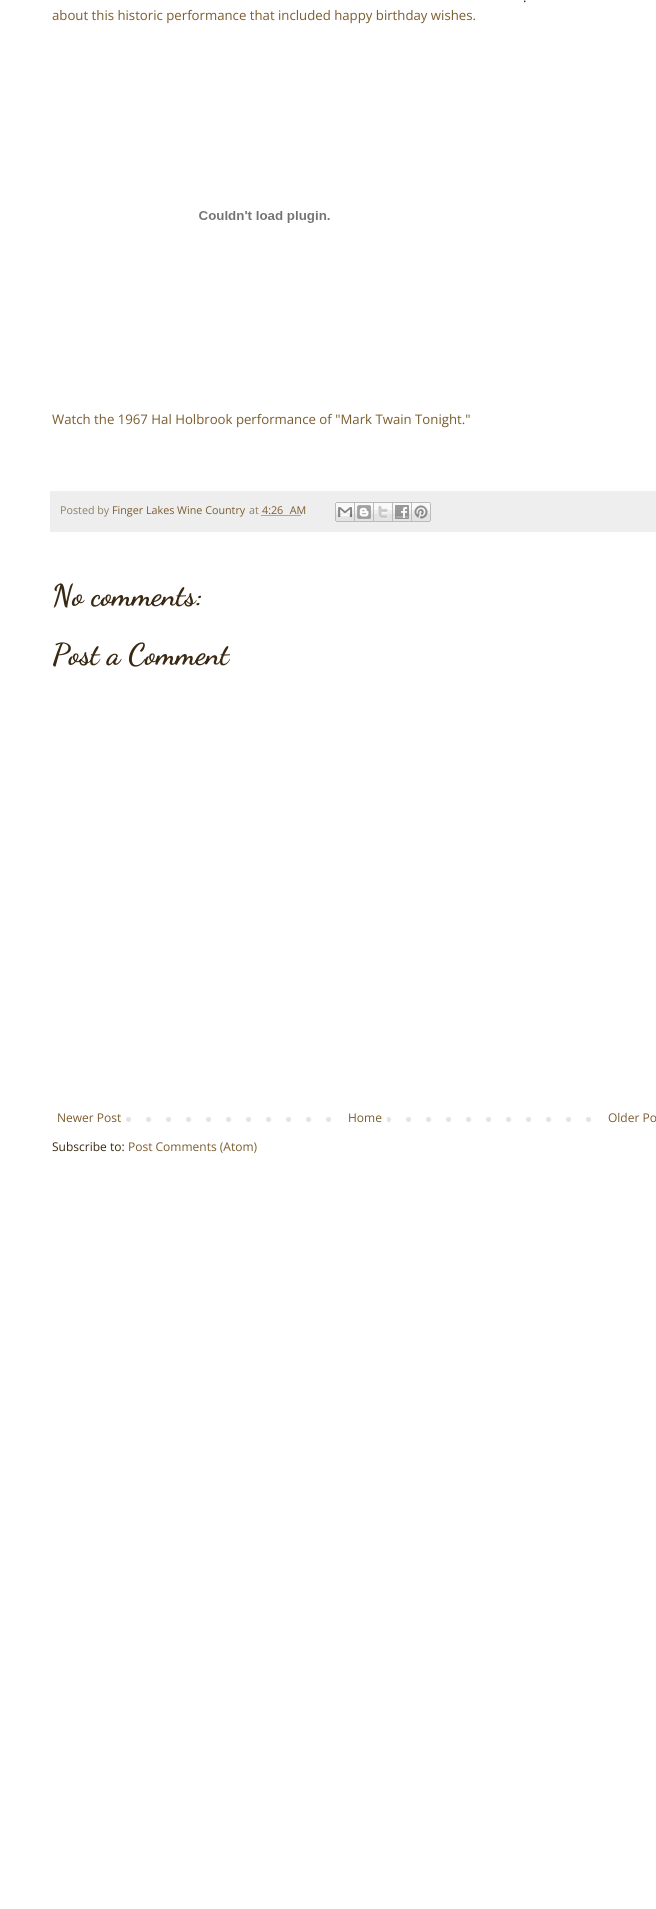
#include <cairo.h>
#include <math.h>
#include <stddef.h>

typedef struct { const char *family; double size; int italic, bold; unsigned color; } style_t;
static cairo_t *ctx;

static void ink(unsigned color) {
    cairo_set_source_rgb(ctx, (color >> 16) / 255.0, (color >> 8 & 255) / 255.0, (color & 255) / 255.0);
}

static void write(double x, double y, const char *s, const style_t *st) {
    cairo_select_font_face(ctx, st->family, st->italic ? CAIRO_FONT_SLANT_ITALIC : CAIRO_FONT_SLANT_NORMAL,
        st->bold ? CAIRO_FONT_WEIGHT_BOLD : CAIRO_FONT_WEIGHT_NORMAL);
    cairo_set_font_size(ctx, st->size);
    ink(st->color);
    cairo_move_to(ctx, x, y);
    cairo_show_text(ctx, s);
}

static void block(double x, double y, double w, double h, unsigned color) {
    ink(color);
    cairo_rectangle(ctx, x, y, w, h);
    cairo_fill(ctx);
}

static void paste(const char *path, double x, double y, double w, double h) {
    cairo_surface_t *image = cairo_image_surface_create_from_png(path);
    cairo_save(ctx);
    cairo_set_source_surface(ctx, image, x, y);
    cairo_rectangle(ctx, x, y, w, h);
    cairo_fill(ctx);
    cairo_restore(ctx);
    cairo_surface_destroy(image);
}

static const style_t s1 = {"Open Sans", 13.2, 0, 0, 0x392912};
static const style_t s2 = {"Open Sans", 13.2, 0, 0, 0x7b5c2e};
static const style_t s3 = {"Open Sans", 10.75, 0, 0, 0x8c8167};
static const style_t s4 = {"Open Sans", 10.75, 0, 0, 0x7b5c2e};
static const style_t s5 = {"Dancing Script", 30, 0, 1, 0x392912};
static const style_t s6 = {"Open Sans", 12, 0, 0, 0x7b5c2e};
static const style_t s7 = {"Open Sans", 12, 0, 0, 0x392912};

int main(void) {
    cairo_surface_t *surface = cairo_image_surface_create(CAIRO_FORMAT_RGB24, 656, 1909);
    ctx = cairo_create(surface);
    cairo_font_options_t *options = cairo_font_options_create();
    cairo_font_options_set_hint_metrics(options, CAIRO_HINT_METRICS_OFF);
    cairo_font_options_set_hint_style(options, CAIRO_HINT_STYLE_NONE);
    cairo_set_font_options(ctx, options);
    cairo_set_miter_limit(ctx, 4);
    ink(0xffffff);
    cairo_paint(ctx);
    write(523, 2, ".", &s1);
    write(52, 20, "about this historic performance that included happy birthday wishes.", &s2);
    paste("pic1.png", 199, 211, 131, 12);
    write(52, 424, "Watch the 1967 Hal Holbrook performance of \"Mark Twain Tonight.\"", &s2);
    block(50, 491, 606, 41, 0xeeeeee);
    write(60, 514, "Posted by", &s3);
    write(112, 514, "Finger Lakes Wine Country", &s4);
    write(249, 514, "at", &s3);
    write(262, 514, "4:26 AM", &s4);
    cairo_new_path(ctx);
    cairo_move_to(ctx, 261.5, 515.5);
    cairo_line_to(ctx, 301, 515.5);
    cairo_set_line_width(ctx, 1);
    cairo_set_dash(ctx, (double[]){1, 1}, 2, 0);
    cairo_stroke(ctx);
    paste("pic2.png", 335, 502, 20, 20);
    paste("pic3.png", 355, 502, 19, 20);
    paste("pic4.png", 374, 502, 19, 20);
    paste("pic5.png", 393, 502, 19, 20);
    paste("pic6.png", 412, 502, 19, 20);
    write(52, 605, "No comments:", &s5);
    write(52, 664, "Post a Comment", &s5);
    paste("pic7.png", 126, 1117, 465, 5);
    write(57, 1122, "Newer Post", &s6);
    block(346, 1117, 41, 5, 0xffffff);
    write(348, 1122, "Home", &s6);
    write(608, 1122, "Older Po", &s6);
    write(52, 1151, "Subscribe to:", &s7);
    write(128, 1151, "Post Comments (Atom)", &s6);
    cairo_surface_write_to_png(surface, "screenshot.png");
    cairo_font_options_destroy(options);
    cairo_destroy(ctx);
    cairo_surface_destroy(surface);
    return 0;
}
